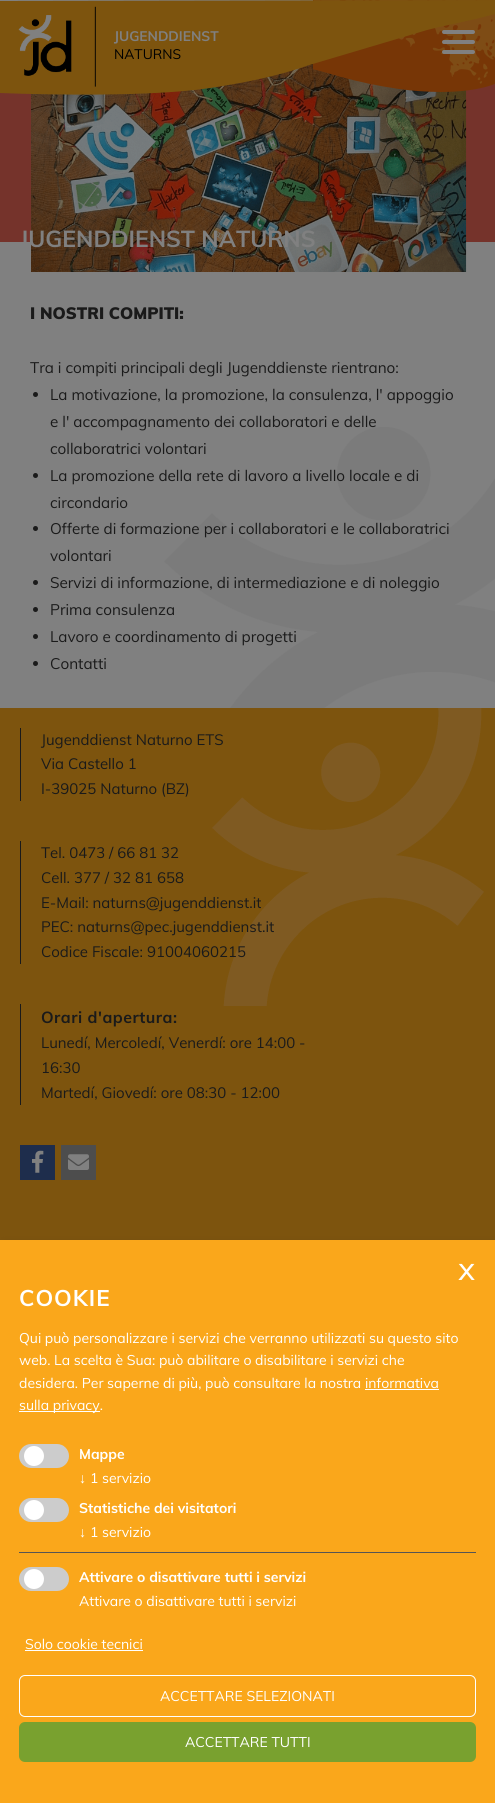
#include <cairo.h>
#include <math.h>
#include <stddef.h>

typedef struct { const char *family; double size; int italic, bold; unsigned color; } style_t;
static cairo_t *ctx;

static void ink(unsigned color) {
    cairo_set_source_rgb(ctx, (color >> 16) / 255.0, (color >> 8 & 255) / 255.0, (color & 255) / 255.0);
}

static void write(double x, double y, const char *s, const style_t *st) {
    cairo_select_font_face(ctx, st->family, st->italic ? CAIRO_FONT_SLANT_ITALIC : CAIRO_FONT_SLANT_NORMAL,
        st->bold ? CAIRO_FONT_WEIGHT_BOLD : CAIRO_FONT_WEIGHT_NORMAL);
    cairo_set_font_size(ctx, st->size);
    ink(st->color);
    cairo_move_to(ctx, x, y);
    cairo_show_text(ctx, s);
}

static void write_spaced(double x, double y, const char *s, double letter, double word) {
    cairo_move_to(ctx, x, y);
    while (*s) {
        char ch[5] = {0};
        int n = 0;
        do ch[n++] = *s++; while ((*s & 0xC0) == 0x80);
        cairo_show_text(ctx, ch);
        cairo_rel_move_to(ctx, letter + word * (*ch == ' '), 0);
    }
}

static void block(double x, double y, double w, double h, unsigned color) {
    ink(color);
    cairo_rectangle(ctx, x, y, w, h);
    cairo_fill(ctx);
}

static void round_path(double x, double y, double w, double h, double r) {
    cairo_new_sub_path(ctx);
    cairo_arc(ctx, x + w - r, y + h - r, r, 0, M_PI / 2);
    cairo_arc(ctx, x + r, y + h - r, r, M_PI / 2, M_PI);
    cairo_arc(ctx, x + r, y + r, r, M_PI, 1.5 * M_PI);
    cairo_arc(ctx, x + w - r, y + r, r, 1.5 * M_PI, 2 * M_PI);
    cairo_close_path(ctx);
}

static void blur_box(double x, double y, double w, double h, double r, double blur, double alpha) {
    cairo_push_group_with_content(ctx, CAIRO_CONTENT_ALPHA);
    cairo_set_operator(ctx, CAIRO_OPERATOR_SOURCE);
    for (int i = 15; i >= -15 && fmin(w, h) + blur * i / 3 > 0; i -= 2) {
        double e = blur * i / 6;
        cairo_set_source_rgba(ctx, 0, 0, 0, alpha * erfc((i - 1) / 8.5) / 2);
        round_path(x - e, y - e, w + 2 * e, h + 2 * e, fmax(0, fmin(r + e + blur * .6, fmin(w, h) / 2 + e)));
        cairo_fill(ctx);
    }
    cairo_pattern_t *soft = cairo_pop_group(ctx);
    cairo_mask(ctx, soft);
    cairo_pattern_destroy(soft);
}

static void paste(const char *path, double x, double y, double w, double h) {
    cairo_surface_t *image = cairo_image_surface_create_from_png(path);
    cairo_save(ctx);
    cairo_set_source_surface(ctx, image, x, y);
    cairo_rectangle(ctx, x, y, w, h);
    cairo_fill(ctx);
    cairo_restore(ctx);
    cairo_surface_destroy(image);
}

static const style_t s1 = {"Muli", 13.75, 0, 1, 0x808080};
static const style_t s2 = {"Muli", 13.75, 0, 0, 0x000000};
static const style_t s3 = {"Muli", 23, 0, 1, 0x808080};
static const style_t s4 = {"Muli Black", 16.4, 0, 0, 0x1a1a1a};
static const style_t s5 = {"Muli", 15.25, 0, 0, 0x1a1a1a};
static const style_t s6 = {"Muli", 15, 0, 0, 0x1a1a1a};
static const style_t s7 = {"Muli", 32, 0, 0, 0xffffff};
static const style_t s8 = {"Muli", 14, 0, 0, 0xffffff};
static const style_t s9 = {"Muli", 14, 0, 1, 0xffffff};
static const style_t s10 = {"Liberation Sans", 14, 0, 0, 0xffffff};

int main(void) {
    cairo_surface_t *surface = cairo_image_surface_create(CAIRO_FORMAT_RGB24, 495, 1803);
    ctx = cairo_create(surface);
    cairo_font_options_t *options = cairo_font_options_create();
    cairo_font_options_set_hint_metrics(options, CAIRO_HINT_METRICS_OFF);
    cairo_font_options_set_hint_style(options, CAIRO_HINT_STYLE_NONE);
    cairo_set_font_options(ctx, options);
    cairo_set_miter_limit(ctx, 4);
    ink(0x808080);
    cairo_paint(ctx);
    block(0, 83, 495, 159, 0x75332b);
    paste("pic3.png", 31, 63, 436, 209);
    paste("pic2.png", 313, 0, 182, 92);
    ink(0x7d540e);
    cairo_new_path(ctx);
    cairo_move_to(ctx, 0, 0);
    cairo_line_to(ctx, 0, 93);
    cairo_curve_to(ctx, 0, 93, 138, 99, 210, 88);
    cairo_curve_to(ctx, 282, 77, 301, 67, 316, 63);
    cairo_curve_to(ctx, 330, 59, 403, 37, 427, 30);
    cairo_curve_to(ctx, 453, 23, 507, 15, 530, 0);
    cairo_line_to(ctx, 0, 1);
    cairo_fill(ctx);
    paste("pic1.png", 18, 6, 78, 81);
    write(114, 41, "JUGENDDIENST", &s1);
    write(114, 59, "NATURNS", &s2);
    ink(0x808080);
    round_path(442, 40, 33, 4, 2);
    cairo_fill(ctx);
    round_path(442, 30, 33, 4, 2);
    cairo_fill(ctx);
    round_path(442, 50, 33, 4, 2);
    cairo_fill(ctx);
    write(20, 247, "JUGENDDIENST NATURNS", &s3);
    paste("pic4.png", 164, 427, 331, 281);
    write(30, 319, "I NOSTRI COMPITI:", &s4);
    write(30, 373, "Tra i compiti principali degli Jugenddienste rientrano:", &s5);
    cairo_new_path(ctx);
    cairo_arc(ctx, 35.5, 394.5, 2.5, 0, 2 * M_PI);
    cairo_fill(ctx);
    write(50, 400, "La motivazione, la promozione, la consulenza, l' appoggio", &s5);
    write(50, 427, "e l' accompagnamento dei collaboratori e delle", &s5);
    write(50, 454, "collaboratrici volontari", &s5);
    cairo_new_path(ctx);
    cairo_arc(ctx, 35.5, 475.5, 2.5, 0, 2 * M_PI);
    cairo_fill(ctx);
    write(50, 481, "La promozione della rete di lavoro a livello locale e di", &s5);
    write(50, 508, "circondario", &s5);
    cairo_new_path(ctx);
    cairo_arc(ctx, 35.5, 528.5, 2.5, 0, 2 * M_PI);
    cairo_fill(ctx);
    write(50, 534, "Offerte di formazione per i collaboratori e le collaboratrici", &s5);
    write(50, 561, "volontari", &s5);
    cairo_new_path(ctx);
    cairo_arc(ctx, 35.5, 582.5, 2.5, 0, 2 * M_PI);
    cairo_fill(ctx);
    write(50, 588, "Servizi di informazione, di intermediazione e di noleggio", &s5);
    cairo_new_path(ctx);
    cairo_arc(ctx, 35.5, 609.5, 2.5, 0, 2 * M_PI);
    cairo_fill(ctx);
    write(50, 615, "Prima consulenza", &s5);
    cairo_new_path(ctx);
    cairo_arc(ctx, 35.5, 636.5, 2.5, 0, 2 * M_PI);
    cairo_fill(ctx);
    write(50, 642, "Lavoro e coordinamento di progetti", &s5);
    cairo_new_path(ctx);
    cairo_arc(ctx, 35.5, 663.5, 2.5, 0, 2 * M_PI);
    cairo_fill(ctx);
    write(50, 669, "Contatti", &s5);
    block(0, 708, 495, 532, 0x7d540e);
    paste("pic5.png", 212, 708, 272, 298);
    block(20, 728, 1, 73, 0x1a1a1a);
    write(41, 745, "Jugenddienst Naturno ETS", &s6);
    write(41, 769, "Via Castello 1", &s6);
    write(41, 794, "I-39025 Naturno (BZ)", &s6);
    block(20, 841, 1, 123, 0x1a1a1a);
    write(41, 858, "Tel. 0473 / 66 81 32", &s6);
    write(41, 883, "Cell. 377 / 32 81 658", &s6);
    write(41, 908, "E-Mail: naturns@jugenddienst.it", &s6);
    write(41, 932, "PEC: naturns@pec.jugenddienst.it", &s6);
    write(41, 957, "Codice Fiscale: 91004060215", &s6);
    block(20, 1004, 1, 101, 0x1a1a1a);
    cairo_select_font_face(ctx, "Muli", CAIRO_FONT_SLANT_NORMAL, CAIRO_FONT_WEIGHT_BOLD);
    cairo_set_font_size(ctx, 16);
    write_spaced(41, 1023, "Orari d'apertura:", 0.5, 0);
    write(41, 1048, "Lunedí, Mercoledí, Venerdí: ore 14:00 -", &s6);
    write(41, 1073, "16:30", &s6);
    write(41, 1098, "Martedí, Giovedí: ore 08:30 - 12:00", &s6);
    block(20, 1145, 35, 35, 0x1e2d4c);
    paste("pic6.png", 32, 1150, 12, 23);
    block(61, 1145, 35, 35, 0x4d4d4d);
    paste("pic7.png", 68, 1154, 21, 16);
    ink(0x000000);
    blur_box(5, 1245, 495, 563, 0, 5, 0.19);
    block(0, 1240, 495, 563, 0xfaa71b);
    write(458, 1280, "x", &s7);
    write(25, 1649, "Solo cookie tecnici", &s8);
    block(25, 1650, 118, 1, 0xffffff);
    round_path(19.5, 1675.5, 456, 41, 5.5);
    cairo_set_line_width(ctx, 1);
    cairo_stroke(ctx);
    write(160, 1701, "ACCETTARE SELEZIONATI", &s8);
    ink(0x79a12f);
    round_path(19, 1722, 457, 40, 6);
    cairo_fill(ctx);
    write(185, 1747, "ACCETTARE TUTTI", &s8);
    cairo_select_font_face(ctx, "Muli", CAIRO_FONT_SLANT_NORMAL, CAIRO_FONT_WEIGHT_BOLD);
    cairo_set_font_size(ctx, 22.5);
    write_spaced(19, 1306, "COOKIE", 1, 0);
    write(19, 1343, "Qui può personalizzare i servizi che verranno utilizzati su questo sito", &s8);
    write(19, 1365, "web. La scelta è Sua: può abilitare o disabilitare i servizi che", &s8);
    write(19, 1388, "desidera. Per saperne di più, può consultare la nostra informativa", &s8);
    block(19, 1411, 81, 1, 0xffffff);
    write(19, 1410, "sulla privacy.", &s8);
    block(365, 1389, 74, 1, 0xffffff);
    ink(0xcccccc);
    round_path(19, 1444, 50, 24, 12);
    cairo_fill(ctx);
    ink(0xffffff);
    cairo_arc(ctx, 34, 1456, 10, 0, 2 * M_PI);
    cairo_fill(ctx);
    write(79, 1459, "Mappe", &s9);
    write(79, 1483, "↓", &s10);
    write(90, 1483, "1 servizio", &s8);
    ink(0xcccccc);
    round_path(19, 1498, 50, 24, 12);
    cairo_fill(ctx);
    ink(0xffffff);
    cairo_arc(ctx, 34, 1510, 10, 0, 2 * M_PI);
    cairo_fill(ctx);
    write(79, 1513, "Statistiche dei visitatori", &s9);
    write(79, 1537, "↓", &s10);
    write(90, 1537, "1 servizio", &s8);
    block(19, 1552, 457, 1, 0x555555);
    ink(0xcccccc);
    round_path(19, 1567, 50, 24, 12);
    cairo_fill(ctx);
    ink(0xffffff);
    cairo_arc(ctx, 34, 1579, 10, 0, 2 * M_PI);
    cairo_fill(ctx);
    write(79, 1582, "Attivare o disattivare tutti i servizi", &s9);
    write(79, 1606, "Attivare o disattivare tutti i servizi", &s8);
    cairo_surface_write_to_png(surface, "screenshot.png");
    cairo_font_options_destroy(options);
    cairo_destroy(ctx);
    cairo_surface_destroy(surface);
    return 0;
}
